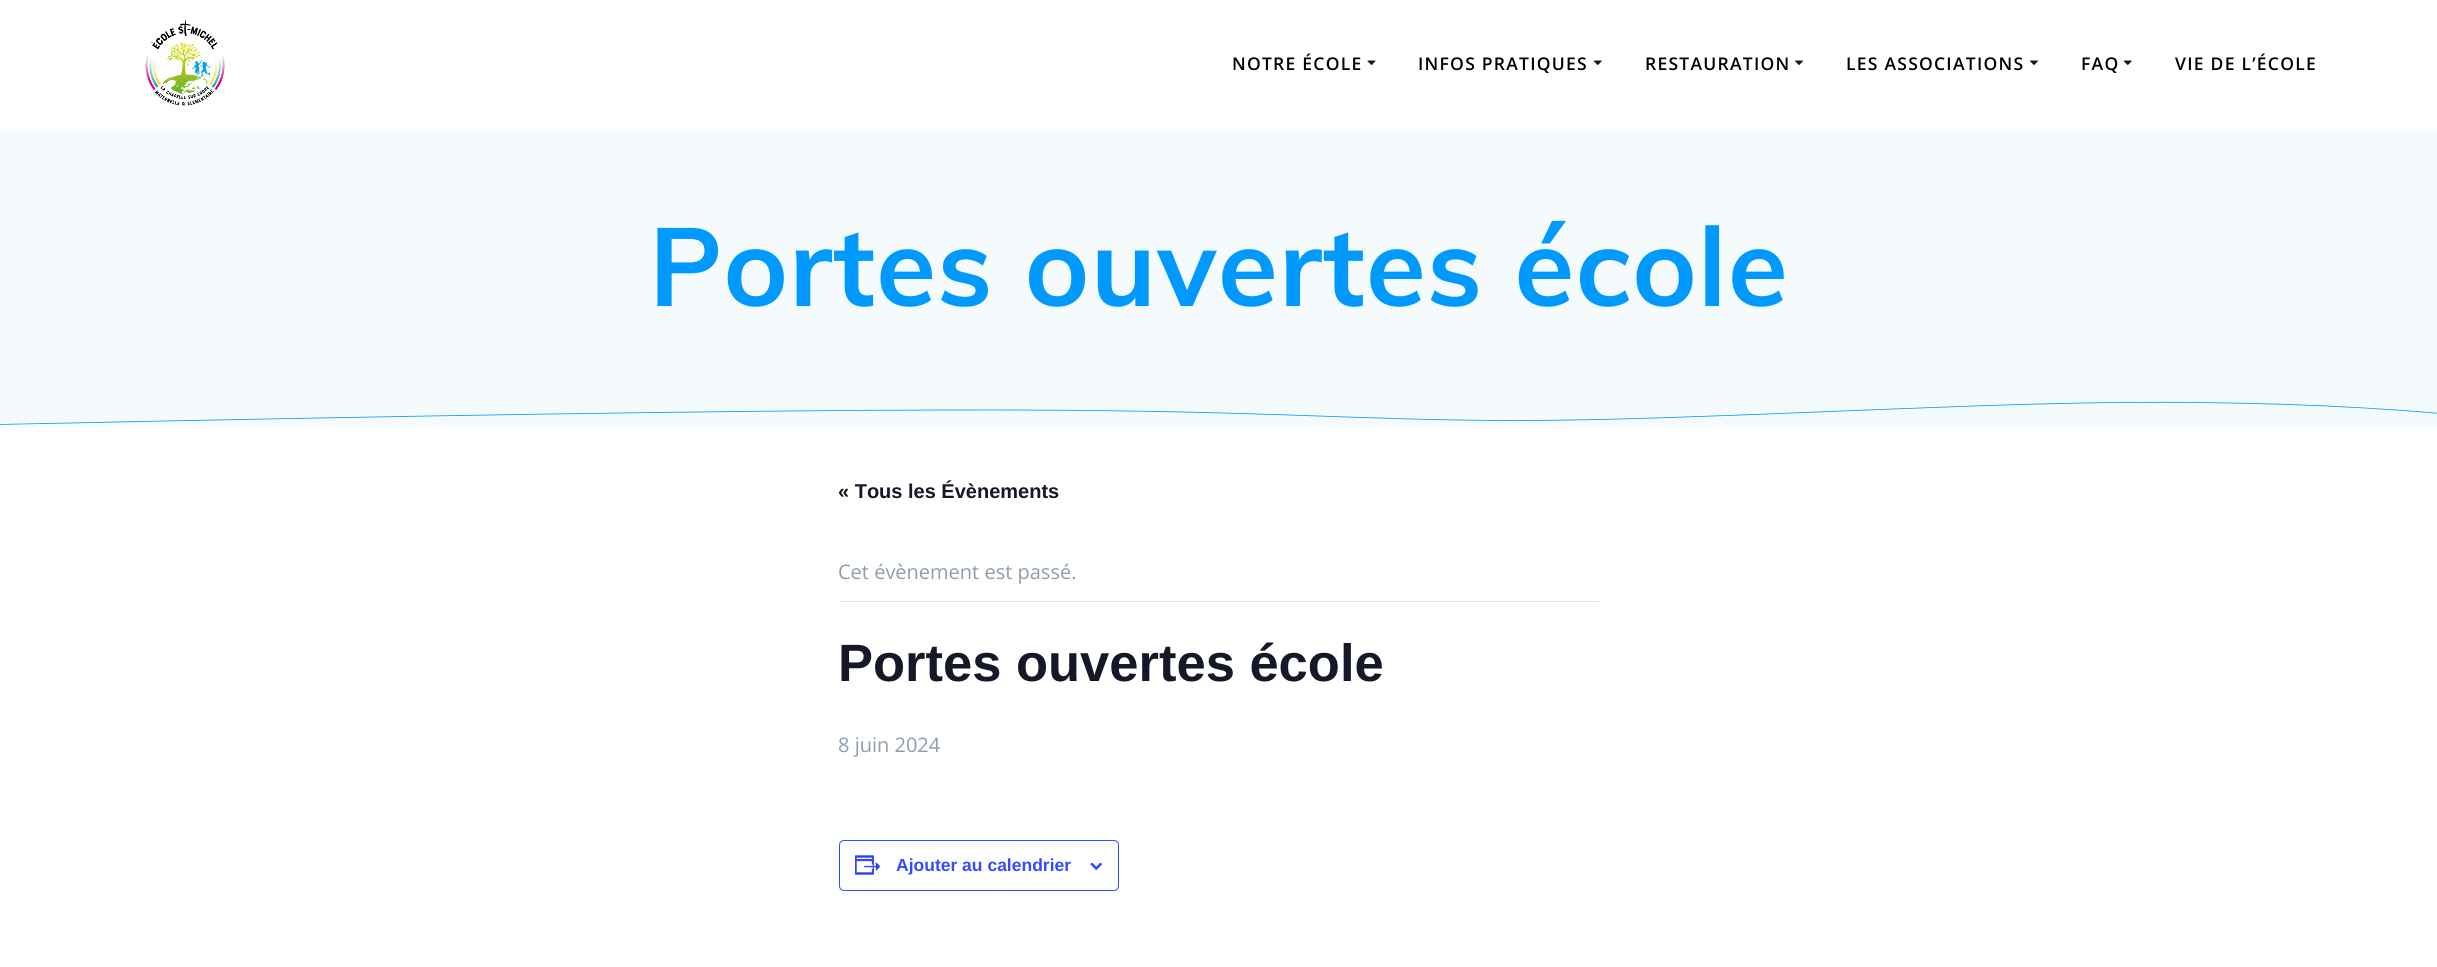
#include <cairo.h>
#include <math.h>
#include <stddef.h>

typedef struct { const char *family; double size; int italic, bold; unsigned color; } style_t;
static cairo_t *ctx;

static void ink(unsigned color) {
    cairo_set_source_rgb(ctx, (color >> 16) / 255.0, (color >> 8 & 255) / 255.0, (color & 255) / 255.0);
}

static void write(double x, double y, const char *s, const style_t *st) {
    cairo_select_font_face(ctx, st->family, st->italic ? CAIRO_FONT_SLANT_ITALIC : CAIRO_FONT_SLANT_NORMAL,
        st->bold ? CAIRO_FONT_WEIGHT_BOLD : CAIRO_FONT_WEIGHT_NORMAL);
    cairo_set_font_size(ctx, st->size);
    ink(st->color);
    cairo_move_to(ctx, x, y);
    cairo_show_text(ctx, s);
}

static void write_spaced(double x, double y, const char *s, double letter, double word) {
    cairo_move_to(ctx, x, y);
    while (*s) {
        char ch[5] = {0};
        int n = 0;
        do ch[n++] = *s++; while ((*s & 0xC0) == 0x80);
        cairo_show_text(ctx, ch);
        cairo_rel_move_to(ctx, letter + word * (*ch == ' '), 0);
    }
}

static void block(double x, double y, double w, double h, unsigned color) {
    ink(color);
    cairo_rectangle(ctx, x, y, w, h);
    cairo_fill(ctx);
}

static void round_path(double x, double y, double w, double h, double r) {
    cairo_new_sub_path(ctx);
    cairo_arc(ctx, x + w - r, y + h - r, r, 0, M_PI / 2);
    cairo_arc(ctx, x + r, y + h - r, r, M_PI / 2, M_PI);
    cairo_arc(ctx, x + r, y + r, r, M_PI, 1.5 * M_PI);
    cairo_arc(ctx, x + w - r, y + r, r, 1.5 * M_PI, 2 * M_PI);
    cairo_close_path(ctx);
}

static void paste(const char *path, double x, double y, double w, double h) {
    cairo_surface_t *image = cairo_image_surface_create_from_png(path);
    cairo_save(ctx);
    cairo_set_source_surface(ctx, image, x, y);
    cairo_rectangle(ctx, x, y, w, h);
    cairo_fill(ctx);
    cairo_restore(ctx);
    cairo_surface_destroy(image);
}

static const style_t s1 = {"Liberation Sans", 20, 0, 1, 0x141827};
static const style_t s2 = {"Open Sans", 20, 0, 0, 0x8e9dae};
static const style_t s3 = {"Liberation Sans", 52.5, 0, 1, 0x141827};
static const style_t s4 = {"Liberation Sans", 17.5, 0, 1, 0x334aff};

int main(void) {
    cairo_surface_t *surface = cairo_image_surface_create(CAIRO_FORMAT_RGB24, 2437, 967);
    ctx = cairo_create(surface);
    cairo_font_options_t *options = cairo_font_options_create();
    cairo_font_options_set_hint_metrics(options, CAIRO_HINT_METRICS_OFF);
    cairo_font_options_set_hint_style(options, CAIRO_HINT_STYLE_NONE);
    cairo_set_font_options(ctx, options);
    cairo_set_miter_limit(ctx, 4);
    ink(0xffffff);
    cairo_paint(ctx);
    paste("pic1.png", 145, 20, 80, 86);
    cairo_select_font_face(ctx, "Open Sans SemiBold", CAIRO_FONT_SLANT_NORMAL, CAIRO_FONT_WEIGHT_NORMAL);
    cairo_set_font_size(ctx, 17.5);
    ink(0x000000);
    write_spaced(1232, 70, "NOTRE ÉCOLE", 1.25, 0);
    paste("pic2.png", 1367, 60, 9, 5);
    write_spaced(1418, 70, "INFOS PRATIQUES", 1.25, 0);
    paste("pic3.png", 1593, 60, 9, 5);
    write_spaced(1645, 70, "RESTAURATION", 1.25, 0);
    paste("pic4.png", 1795, 60, 8, 5);
    write_spaced(1846, 70, "LES ASSOCIATIONS", 1.25, 0);
    paste("pic4.png", 2030, 60, 8, 5);
    write_spaced(2081, 70, "FAQ", 1.25, 0);
    paste("pic3.png", 2123, 60, 9, 5);
    write_spaced(2175, 70, "VIE DE L’ÉCOLE", 1.25, 0);
    block(0, 129, 2437, 293, 0xf5fafd);
    cairo_select_font_face(ctx, "Muli", CAIRO_FONT_SLANT_NORMAL, CAIRO_FONT_WEIGHT_BOLD);
    cairo_set_font_size(ctx, 109.75);
    ink(0x009aff);
    write_spaced(649, 306, "Portes ouvertes école", 1.1, 0);
    ink(0xf5fafd);
    cairo_new_path(ctx);
    cairo_move_to(ctx, -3, 422);
    cairo_curve_to(ctx, 451, 416, 765, 412, 938, 412);
    cairo_curve_to(ctx, 1198, 413, 1347, 418, 1515, 418);
    cairo_curve_to(ctx, 1683, 418, 1962, 405, 2136, 404);
    cairo_curve_to(ctx, 2252, 403, 2354, 404, 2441, 409);
    cairo_line_to(ctx, 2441, 428);
    cairo_line_to(ctx, -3, 428);
    cairo_close_path(ctx);
    cairo_fill(ctx);
    cairo_new_path(ctx);
    cairo_move_to(ctx, -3, 424.5);
    cairo_curve_to(ctx, 415.5, 415.5, 730.5, 410.5, 942, 410);
    cairo_curve_to(ctx, 1259, 409, 1349, 420.5, 1517.5, 420.5);
    cairo_curve_to(ctx, 1685.5, 420.5, 1945, 404, 2119.5, 402.5);
    cairo_curve_to(ctx, 2236, 401.5, 2343, 405, 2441, 413.5);
    ink(0x009aff);
    cairo_set_line_width(ctx, 0.8);
    cairo_stroke(ctx);
    write(838, 498, "« Tous les Évènements", &s1);
    block(839, 601, 760, 1, 0xe4e4e4);
    write(838, 579, "Cet évènement est passé.", &s2);
    write(838, 681, "Portes ouvertes école", &s3);
    write(838, 752, "8 juin 2024", &s2);
    round_path(839.5, 840.5, 279, 50, 4.5);
    ink(0x334aff);
    cairo_set_line_width(ctx, 1);
    cairo_stroke(ctx);
    paste("pic5.png", 855, 855, 26, 20);
    write(896, 871, "Ajouter au calendrier", &s4);
    paste("pic6.png", 1090, 863, 13, 7);
    cairo_surface_write_to_png(surface, "screenshot.png");
    cairo_font_options_destroy(options);
    cairo_destroy(ctx);
    cairo_surface_destroy(surface);
    return 0;
}
